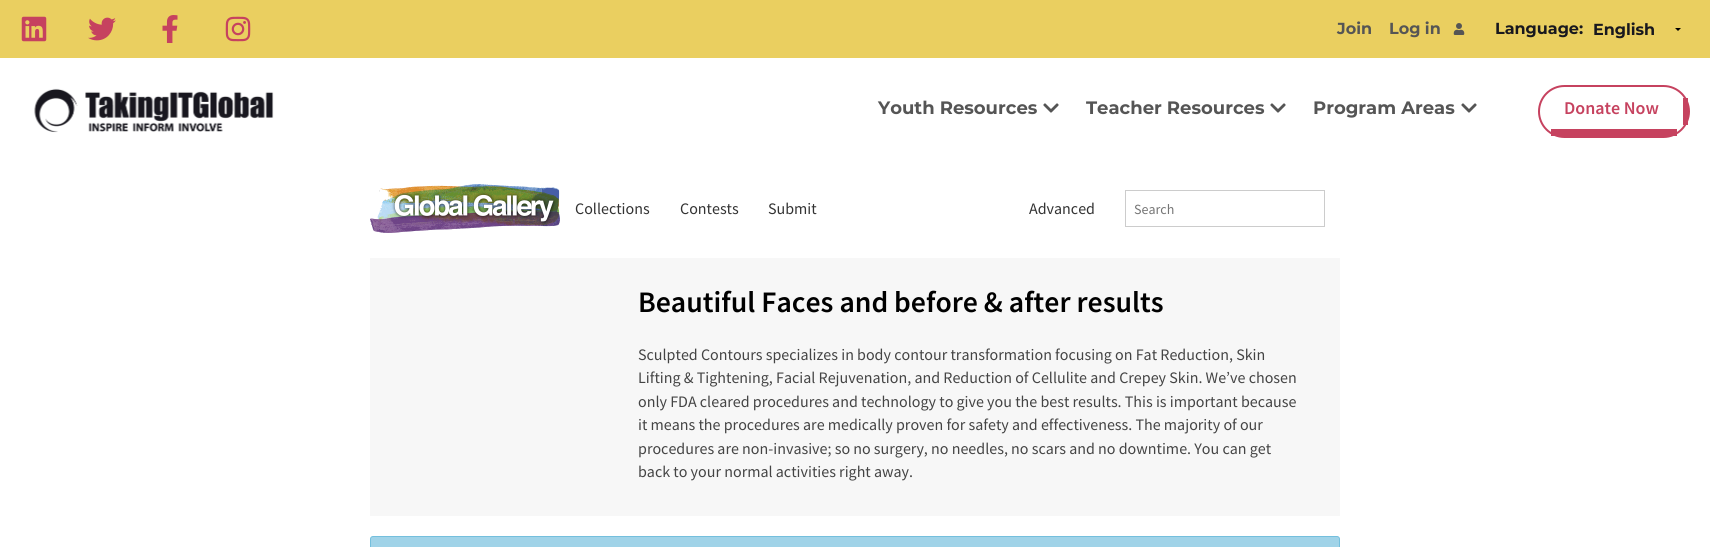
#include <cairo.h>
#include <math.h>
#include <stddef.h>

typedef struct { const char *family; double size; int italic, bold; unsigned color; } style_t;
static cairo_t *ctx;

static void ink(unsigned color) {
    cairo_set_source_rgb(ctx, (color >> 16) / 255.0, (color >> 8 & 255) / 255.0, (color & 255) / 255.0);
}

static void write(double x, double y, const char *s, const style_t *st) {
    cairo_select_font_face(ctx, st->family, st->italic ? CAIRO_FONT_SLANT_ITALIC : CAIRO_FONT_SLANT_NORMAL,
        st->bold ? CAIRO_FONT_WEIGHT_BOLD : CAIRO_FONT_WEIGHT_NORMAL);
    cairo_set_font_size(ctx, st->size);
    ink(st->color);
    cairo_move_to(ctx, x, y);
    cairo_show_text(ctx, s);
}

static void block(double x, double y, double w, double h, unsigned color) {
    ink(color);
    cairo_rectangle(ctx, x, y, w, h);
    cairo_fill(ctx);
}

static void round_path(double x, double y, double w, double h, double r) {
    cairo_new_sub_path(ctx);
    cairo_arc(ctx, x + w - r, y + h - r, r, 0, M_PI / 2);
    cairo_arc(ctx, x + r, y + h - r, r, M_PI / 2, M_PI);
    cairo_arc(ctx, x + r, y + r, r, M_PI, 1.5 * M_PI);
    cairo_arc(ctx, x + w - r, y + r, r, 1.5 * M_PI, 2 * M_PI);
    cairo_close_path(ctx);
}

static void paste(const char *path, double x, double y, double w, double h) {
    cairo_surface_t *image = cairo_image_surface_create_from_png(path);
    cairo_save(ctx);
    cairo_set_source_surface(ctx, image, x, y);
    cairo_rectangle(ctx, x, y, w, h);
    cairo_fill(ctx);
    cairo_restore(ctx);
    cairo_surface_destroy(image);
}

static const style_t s1 = {"Montserrat", 16, 0, 1, 0x555555};
static const style_t s2 = {"Montserrat", 16, 0, 1, 0x18181e};
static const style_t s3 = {"Montserrat", 18, 0, 1, 0x555555};
static const style_t s4 = {"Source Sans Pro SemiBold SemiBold", 18, 0, 0, 0xc6425f};
static const style_t s5 = {"Source Sans Pro", 16, 0, 0, 0x333333};
static const style_t s6 = {"Source Sans Pro", 14, 0, 0, 0x757575};
static const style_t s7 = {"Source Sans Pro SemiBold SemiBold", 29.75, 0, 0, 0x000000};
static const style_t s8 = {"Source Sans Pro", 16, 0, 0, 0x444444};

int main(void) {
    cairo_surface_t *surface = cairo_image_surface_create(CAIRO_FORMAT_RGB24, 1710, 547);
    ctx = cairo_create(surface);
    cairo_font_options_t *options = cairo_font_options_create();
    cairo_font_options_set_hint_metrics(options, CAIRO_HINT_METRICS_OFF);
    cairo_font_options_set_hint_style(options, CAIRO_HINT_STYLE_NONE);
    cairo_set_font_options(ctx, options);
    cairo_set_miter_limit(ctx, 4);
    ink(0xffffff);
    cairo_paint(ctx);
    block(0, 0, 1710, 58, 0xeacf60);
    paste("pic1.png", 21, 16, 26, 26);
    paste("pic2.png", 88, 17, 28, 24);
    paste("pic3.png", 162, 15, 16, 28);
    paste("pic4.png", 225, 16, 26, 26);
    write(1337, 34, "Join", &s1);
    write(1389, 34, "Log in", &s1);
    paste("pic5.png", 1453, 23, 12, 12);
    write(1495, 34, "Language:", &s2);
    ink(0x000000);
    cairo_new_path(ctx);
    cairo_move_to(ctx, 1681, 28);
    cairo_line_to(ctx, 1678, 31);
    cairo_line_to(ctx, 1675, 28);
    cairo_close_path(ctx);
    cairo_fill(ctx);
    write(1593, 35, "English", &s2);
    paste("pic6.png", 34, 88, 240, 45);
    write(878, 114, "Youth Resources", &s3);
    paste("pic7.png", 1043, 103, 16, 10);
    write(1086, 114, "Teacher Resources", &s3);
    paste("pic7.png", 1270, 103, 16, 10);
    write(1313, 114, "Program Areas", &s3);
    paste("pic7.png", 1461, 103, 16, 10);
    round_path(1539, 86, 150, 51, 25.5);
    ink(0xc6425f);
    cairo_stroke(ctx);
    block(1683, 98, 5, 27, 0xc6425f);
    block(1551, 129, 126, 7, 0xc6425f);
    write(1564, 114, "Donate Now", &s4);
    paste("pic8.png", 370, 184, 190, 49);
    write(575, 214, "Collections", &s5);
    write(680, 214, "Contests", &s5);
    write(768, 214, "Submit", &s5);
    write(1029, 214, "Advanced", &s5);
    cairo_rectangle(ctx, 1125.5, 190.5, 199, 36);
    ink(0xcccccc);
    cairo_set_line_width(ctx, 1);
    cairo_stroke(ctx);
    write(1134, 214, "Search", &s6);
    block(370, 258, 970, 258, 0xf7f7f7);
    write(638, 312, "Beautiful Faces and before & after results", &s7);
    write(638, 360, "Sculpted Contours specializes in body contour transformation focusing on Fat Reduction, Skin", &s8);
    write(638, 383, "Lifting & Tightening, Facial Rejuvenation, and Reduction of Cellulite and Crepey Skin. We’ve chosen", &s8);
    write(638, 407, "only FDA cleared procedures and technology to give you the best results. This is important because", &s8);
    write(638, 430, "it means the procedures are medically proven for safety and effectiveness. The majority of our", &s8);
    write(638, 454, "procedures are non-invasive; so no surgery, no needles, no scars and no downtime. You can get", &s8);
    write(638, 477, "back to your normal activities right away.", &s8);
    ink(0xa0d3e8);
    round_path(370.5, 536.5, 969, 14, 2.5);
    cairo_fill_preserve(ctx);
    ink(0x74bfdd);
    cairo_stroke(ctx);
    cairo_surface_write_to_png(surface, "screenshot.png");
    cairo_font_options_destroy(options);
    cairo_destroy(ctx);
    cairo_surface_destroy(surface);
    return 0;
}
